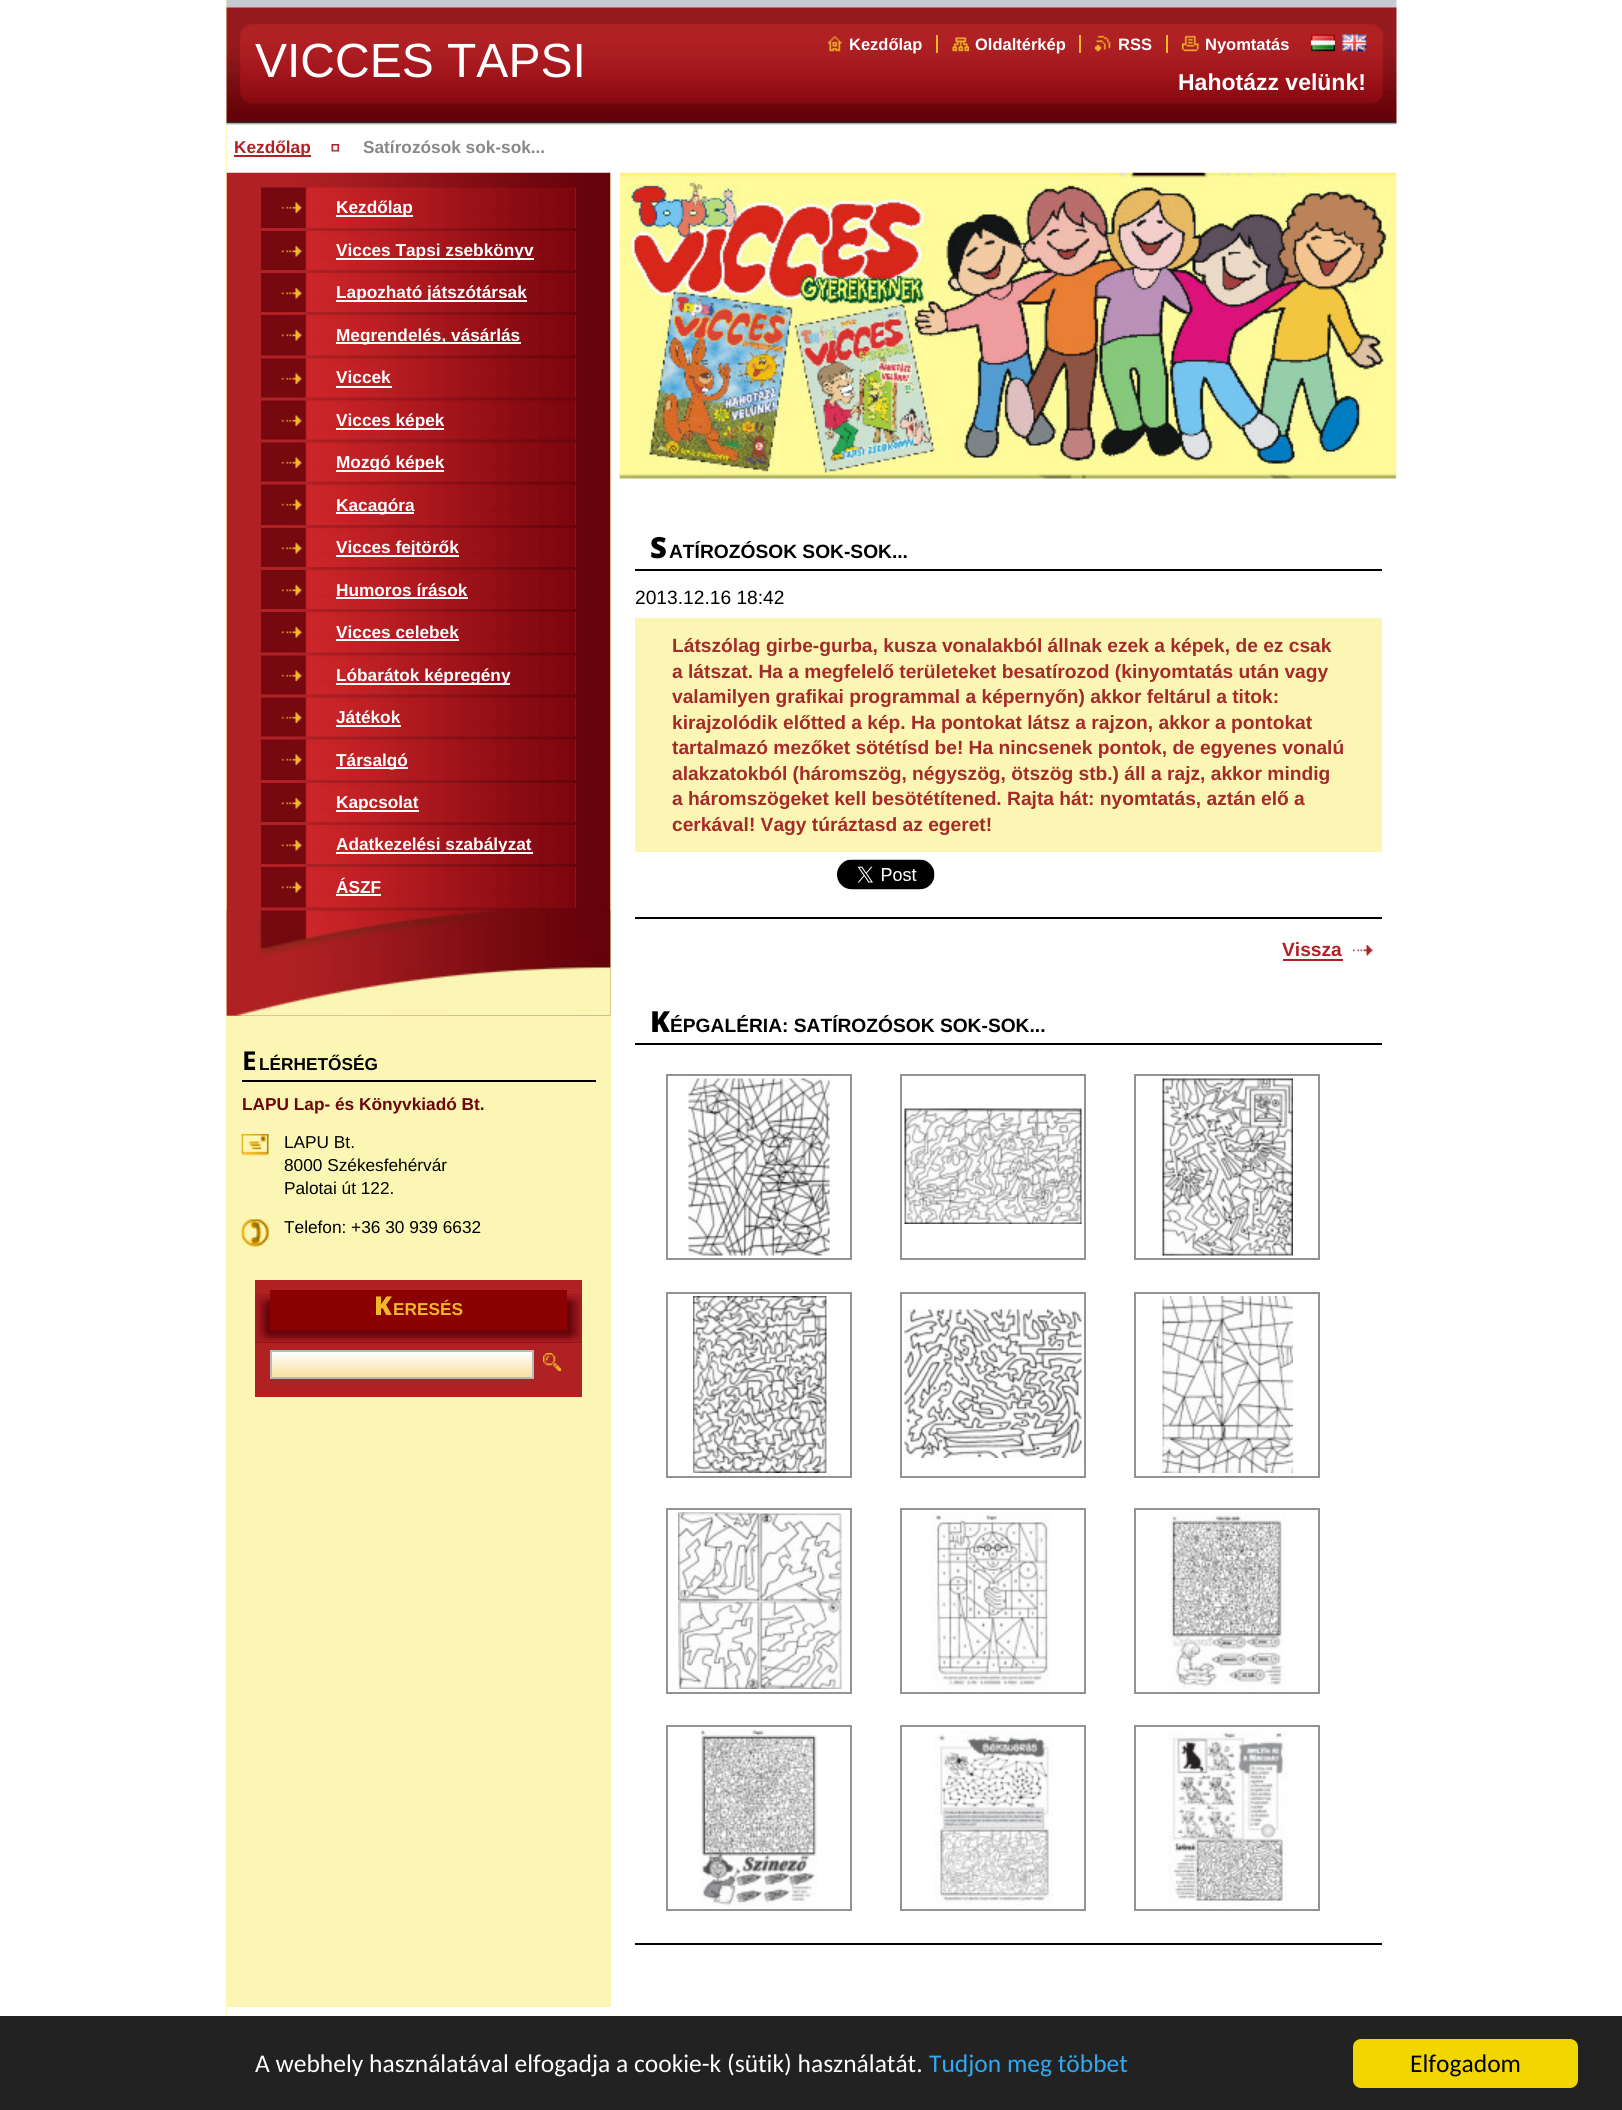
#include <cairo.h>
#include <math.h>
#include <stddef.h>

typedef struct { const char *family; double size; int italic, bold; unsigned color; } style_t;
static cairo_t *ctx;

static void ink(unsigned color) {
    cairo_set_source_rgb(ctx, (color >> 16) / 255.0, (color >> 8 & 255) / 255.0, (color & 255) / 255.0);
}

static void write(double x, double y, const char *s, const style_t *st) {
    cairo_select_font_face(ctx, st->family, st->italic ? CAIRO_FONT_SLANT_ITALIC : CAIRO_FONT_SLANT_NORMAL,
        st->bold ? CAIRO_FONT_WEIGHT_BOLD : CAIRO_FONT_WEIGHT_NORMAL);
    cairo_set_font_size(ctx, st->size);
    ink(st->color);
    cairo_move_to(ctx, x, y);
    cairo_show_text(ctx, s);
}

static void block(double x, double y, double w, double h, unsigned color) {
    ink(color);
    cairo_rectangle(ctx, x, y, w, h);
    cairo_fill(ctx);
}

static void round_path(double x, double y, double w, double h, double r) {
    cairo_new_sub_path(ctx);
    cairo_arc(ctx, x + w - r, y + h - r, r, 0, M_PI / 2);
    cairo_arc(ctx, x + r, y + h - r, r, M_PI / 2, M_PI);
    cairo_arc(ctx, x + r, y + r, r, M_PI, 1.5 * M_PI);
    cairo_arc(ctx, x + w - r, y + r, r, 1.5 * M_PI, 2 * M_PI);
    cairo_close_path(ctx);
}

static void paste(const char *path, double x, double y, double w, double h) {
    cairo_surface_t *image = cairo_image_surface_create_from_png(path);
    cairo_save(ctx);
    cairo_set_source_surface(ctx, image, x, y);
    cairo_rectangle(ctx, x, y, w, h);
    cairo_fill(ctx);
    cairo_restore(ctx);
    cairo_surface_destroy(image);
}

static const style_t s1 = {"Liberation Sans", 48, 0, 0, 0xffffff};
static const style_t s2 = {"Liberation Sans", 16.5, 0, 1, 0xffffff};
static const style_t s3 = {"Liberation Sans", 23, 0, 1, 0xffffff};
static const style_t s4 = {"Liberation Sans", 17.25, 0, 1, 0xaf2124};
static const style_t s5 = {"Liberation Sans", 17.25, 0, 1, 0x888888};
static const style_t s6 = {"Liberation Sans", 17.25, 0, 1, 0xffffff};
static const style_t s7 = {"Noto Sans", 26, 0, 1, 0x000000};
static const style_t s8 = {"Liberation Sans", 17.25, 0, 1, 0x000000};
static const style_t s9 = {"Liberation Sans", 17.25, 0, 1, 0x6b060c};
static const style_t s10 = {"Liberation Sans", 17.25, 0, 0, 0x000000};
static const style_t s11 = {"Noto Sans Black", 26, 0, 0, 0xf2b828};
static const style_t s12 = {"Liberation Sans", 17.25, 0, 1, 0xf2b828};
static const style_t s13 = {"Noto Sans Black", 29, 0, 0, 0x000000};
static const style_t s14 = {"Liberation Sans", 19.2, 0, 1, 0x000000};
static const style_t s15 = {"Liberation Sans", 19.2, 0, 0, 0x000000};
static const style_t s16 = {"Liberation Sans", 19.2, 0, 1, 0xa52a2a};
static const style_t s17 = {"Liberation Sans", 19.2, 0, 1, 0xaf2124};
static const style_t s18 = {"Carlito", 25.5, 0, 0, 0xffffff};
static const style_t s19 = {"Carlito", 25.5, 0, 0, 0x31a8f0};
static const style_t s20 = {"Carlito", 25.5, 0, 0, 0x000000};

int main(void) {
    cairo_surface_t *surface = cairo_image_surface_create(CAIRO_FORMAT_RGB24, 1622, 2110);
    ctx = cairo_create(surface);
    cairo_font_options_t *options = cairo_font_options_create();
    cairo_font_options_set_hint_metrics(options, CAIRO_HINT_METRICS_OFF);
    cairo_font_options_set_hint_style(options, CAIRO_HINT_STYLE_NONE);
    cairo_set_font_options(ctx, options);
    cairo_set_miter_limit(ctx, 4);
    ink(0xffffff);
    cairo_paint(ctx);
    block(226, 0, 385, 2016, 0xfbf6b4);
    paste("pic1.png", 226, 0, 1171, 125);
    write(255, 77, "VICCES TAPSI", &s1);
    paste("pic2.png", 827, 35, 15, 17);
    write(849, 50, "Kezdőlap", &s2);
    paste("pic3.png", 952, 37, 17, 15);
    write(975, 50, "Oldaltérkép", &s2);
    block(936, 35, 2, 18, 0xf2b828);
    paste("pic4.png", 1095, 35, 16, 17);
    write(1118, 50, "RSS", &s2);
    block(1079, 35, 2, 18, 0xf2b828);
    paste("pic5.png", 1182, 35, 17, 17);
    write(1205, 50, "Nyomtatás", &s2);
    block(1166, 35, 2, 18, 0xf2b828);
    paste("pic6.png", 1311, 34, 24, 18);
    paste("pic7.png", 1342, 34, 25, 18);
    write(1178, 90, "Hahotázz velünk!", &s3);
    block(227, 125, 384, 48, 0xffffff);
    block(234, 155, 77, 2, 0xaf2124);
    write(234, 153, "Kezdőlap", &s4);
    paste("pic8.png", 331, 144, 8, 8);
    write(363, 153, "Satírozósok sok-sok...", &s5);
    paste("pic9.png", 226, 172, 385, 844);
    paste("pic10.png", 261, 187, 315, 41);
    paste("pic11.png", 281, 202, 21, 11);
    block(336, 215, 77, 2, 0xffffff);
    write(336, 213, "Kezdőlap", &s6);
    paste("pic12.png", 261, 231, 315, 39);
    paste("pic13.png", 281, 245, 21, 12);
    block(336, 258, 198, 2, 0xffffff);
    write(336, 256, "Vicces Tapsi zsebkönyv", &s6);
    paste("pic14.png", 261, 273, 315, 39);
    paste("pic13.png", 281, 287, 21, 12);
    block(336, 300, 191, 2, 0xffffff);
    write(336, 298, "Lapozható játszótársak", &s6);
    paste("pic15.png", 261, 315, 315, 41);
    paste("pic13.png", 281, 329, 21, 12);
    block(336, 342, 185, 2, 0xffffff);
    write(336, 341, "Megrendelés, vásárlás", &s6);
    paste("pic16.png", 261, 358, 315, 40);
    paste("pic11.png", 281, 373, 21, 11);
    write(336, 383, "Viccek", &s6);
    block(336, 386, 56, 2, 0xffffff);
    paste("pic17.png", 261, 400, 315, 40);
    paste("pic11.png", 281, 415, 21, 11);
    block(336, 428, 108, 2, 0xffffff);
    write(336, 426, "Vicces képek", &s6);
    paste("pic18.png", 261, 442, 315, 40);
    paste("pic11.png", 281, 457, 21, 11);
    block(336, 470, 108, 2, 0xffffff);
    write(336, 468, "Mozgó képek", &s6);
    paste("pic19.png", 261, 484, 315, 41);
    paste("pic11.png", 281, 499, 21, 11);
    block(336, 512, 78, 2, 0xffffff);
    write(336, 511, "Kacagóra", &s6);
    paste("pic20.png", 261, 528, 315, 39);
    paste("pic13.png", 281, 542, 21, 12);
    block(336, 555, 123, 2, 0xffffff);
    write(336, 553, "Vicces fejtörők", &s6);
    paste("pic21.png", 261, 570, 315, 39);
    paste("pic13.png", 281, 584, 21, 12);
    write(336, 596, "Humoros írások", &s6);
    block(336, 597, 132, 2, 0xffffff);
    paste("pic22.png", 261, 612, 315, 41);
    paste("pic13.png", 281, 626, 21, 12);
    write(336, 638, "Vicces celebek", &s6);
    block(336, 639, 123, 2, 0xffffff);
    paste("pic23.png", 261, 655, 315, 40);
    paste("pic11.png", 281, 670, 21, 11);
    block(336, 683, 174, 2, 0xffffff);
    write(336, 681, "Lóbarátok képregény", &s6);
    paste("pic24.png", 261, 697, 315, 40);
    paste("pic11.png", 281, 712, 21, 11);
    write(336, 723, "Játékok", &s6);
    block(336, 725, 65, 2, 0xffffff);
    paste("pic25.png", 261, 739, 315, 41);
    paste("pic11.png", 281, 754, 21, 11);
    block(336, 767, 72, 2, 0xffffff);
    write(336, 766, "Társalgó", &s6);
    paste("pic26.png", 261, 783, 315, 39);
    paste("pic13.png", 281, 797, 21, 12);
    block(336, 810, 83, 2, 0xffffff);
    write(336, 808, "Kapcsolat", &s6);
    paste("pic27.png", 261, 825, 315, 39);
    paste("pic13.png", 281, 839, 21, 12);
    block(336, 852, 197, 2, 0xffffff);
    write(336, 850, "Adatkezelési szabályzat", &s6);
    paste("pic28.png", 261, 867, 315, 41);
    paste("pic13.png", 281, 881, 21, 12);
    write(336, 893, "ÁSZF", &s6);
    block(336, 894, 45, 2, 0xffffff);
    paste("pic29.png", 226, 910, 385, 106);
    block(242, 1080, 354, 2, 0x000000);
    write(242, 1070, "E", &s7);
    write(259, 1070, "LÉRHETŐSÉG", &s8);
    write(242, 1110, "LAPU Lap- és Könyvkiadó Bt.", &s9);
    paste("pic30.png", 241, 1134, 28, 22);
    write(284, 1148, "LAPU Bt.", &s10);
    write(284, 1171, "8000 Székesfehérvár", &s10);
    write(284, 1194, "Palotai út 122.", &s10);
    paste("pic31.png", 241, 1219, 28, 28);
    write(284, 1233, "Telefon: +36 30 939 6632", &s10);
    block(255, 1280, 327, 117, 0xb02124);
    block(255, 1306, 327, 37, 0x8b0103);
    paste("pic32.png", 255, 1294, 327, 49);
    paste("pic33.png", 257, 1294, 324, 13);
    block(270, 1290, 297, 35, 0x8b0103);
    write(374, 1315, "K", &s11);
    write(393, 1315, "ERESÉS", &s12);
    paste("pic34.png", 255, 1330, 327, 13);
    block(272, 1352, 260, 1, 0xffffff);
    paste("pic35.png", 272, 1353, 260, 24);
    cairo_rectangle(ctx, 271, 1351, 262, 27);
    ink(0xb8b8b8);
    cairo_stroke(ctx);
    paste("pic36.png", 543, 1353, 18, 18);
    paste("pic37.png", 619, 172, 778, 307);
    block(635, 569, 747, 2, 0x000000);
    write(650, 558, "S", &s13);
    write(669, 558, "ATÍROZÓSOK SOK-SOK...", &s14);
    write(635, 604, "2013.12.16 18:42", &s15);
    block(635, 618, 747, 234, 0xfbf6b4);
    write(672, 652, "Látszólag girbe-gurba, kusza vonalakból állnak ezek a képek, de ez csak", &s16);
    write(672, 678, "a látszat. Ha a megfelelő területeket besatírozod (kinyomtatás után vagy", &s16);
    write(672, 703, "valamilyen grafikai programmal a képernyőn) akkor feltárul a titok:", &s16);
    write(672, 729, "kirajzolódik előtted a kép. Ha pontokat látsz a rajzon, akkor a pontokat", &s16);
    write(672, 754, "tartalmazó mezőket sötétísd be! Ha nincsenek pontok, de egyenes vonalú", &s16);
    write(672, 780, "alakzatokból (háromszög, négyszög, ötszög stb.) áll a rajz, akkor mindig", &s16);
    write(672, 805, "a háromszögeket kell besötétítened. Rajta hát: nyomtatás, aztán elő a", &s16);
    write(672, 831, "cerkával! Vagy túráztasd az egeret!", &s16);
    paste("pic38.png", 837, 859, 98, 31);
    block(635, 917, 747, 2, 0x000000);
    write(1282, 956, "Vissza", &s17);
    block(1283, 959, 60, 2, 0xaf2124);
    paste("pic39.png", 1353, 945, 20, 11);
    block(635, 1043, 747, 2, 0x000000);
    write(650, 1032, "K", &s13);
    write(670, 1032, "ÉPGALÉRIA: SATÍROZÓSOK SOK-SOK...", &s14);
    cairo_rectangle(ctx, 667, 1075, 184, 184);
    ink(0x939393);
    cairo_stroke(ctx);
    paste("pic40.png", 688, 1078, 142, 178);
    cairo_rectangle(ctx, 901, 1075, 184, 184);
    cairo_stroke(ctx);
    paste("pic41.png", 904, 1108, 178, 116);
    cairo_rectangle(ctx, 1135, 1075, 184, 184);
    cairo_stroke(ctx);
    paste("pic42.png", 1162, 1078, 131, 178);
    cairo_rectangle(ctx, 667, 1293, 184, 184);
    cairo_stroke(ctx);
    paste("pic43.png", 693, 1296, 134, 177);
    cairo_rectangle(ctx, 901, 1293, 184, 184);
    cairo_stroke(ctx);
    paste("pic44.png", 904, 1309, 178, 149);
    cairo_rectangle(ctx, 1135, 1293, 184, 184);
    cairo_stroke(ctx);
    paste("pic45.png", 1162, 1296, 131, 177);
    cairo_rectangle(ctx, 667, 1509, 184, 184);
    cairo_stroke(ctx);
    paste("pic46.png", 678, 1512, 164, 177);
    cairo_rectangle(ctx, 901, 1509, 184, 184);
    cairo_stroke(ctx);
    paste("pic47.png", 930, 1512, 120, 177);
    cairo_rectangle(ctx, 1135, 1509, 184, 184);
    cairo_stroke(ctx);
    paste("pic48.png", 1168, 1512, 118, 177);
    cairo_rectangle(ctx, 667, 1726, 184, 184);
    cairo_stroke(ctx);
    paste("pic49.png", 700, 1729, 118, 178);
    cairo_rectangle(ctx, 901, 1726, 184, 184);
    cairo_stroke(ctx);
    paste("pic50.png", 934, 1730, 119, 176);
    cairo_rectangle(ctx, 1135, 1726, 184, 184);
    cairo_stroke(ctx);
    paste("pic51.png", 1168, 1730, 119, 177);
    block(635, 1943, 747, 2, 0x000000);
    block(227, 2007, 384, 9, 0xffffff);
    block(0, 2016, 1622, 94, 0x222222);
    write(255, 2072, "A webhely használatával elfogadja a cookie-k (sütik) használatát.", &s18);
    write(929, 2072, "Tudjon meg többet", &s19);
    ink(0xf1d600);
    round_path(1353, 2039, 225, 49, 8);
    cairo_fill(ctx);
    write(1410, 2072, "Elfogadom", &s20);
    cairo_surface_write_to_png(surface, "screenshot.png");
    cairo_font_options_destroy(options);
    cairo_destroy(ctx);
    cairo_surface_destroy(surface);
    return 0;
}
